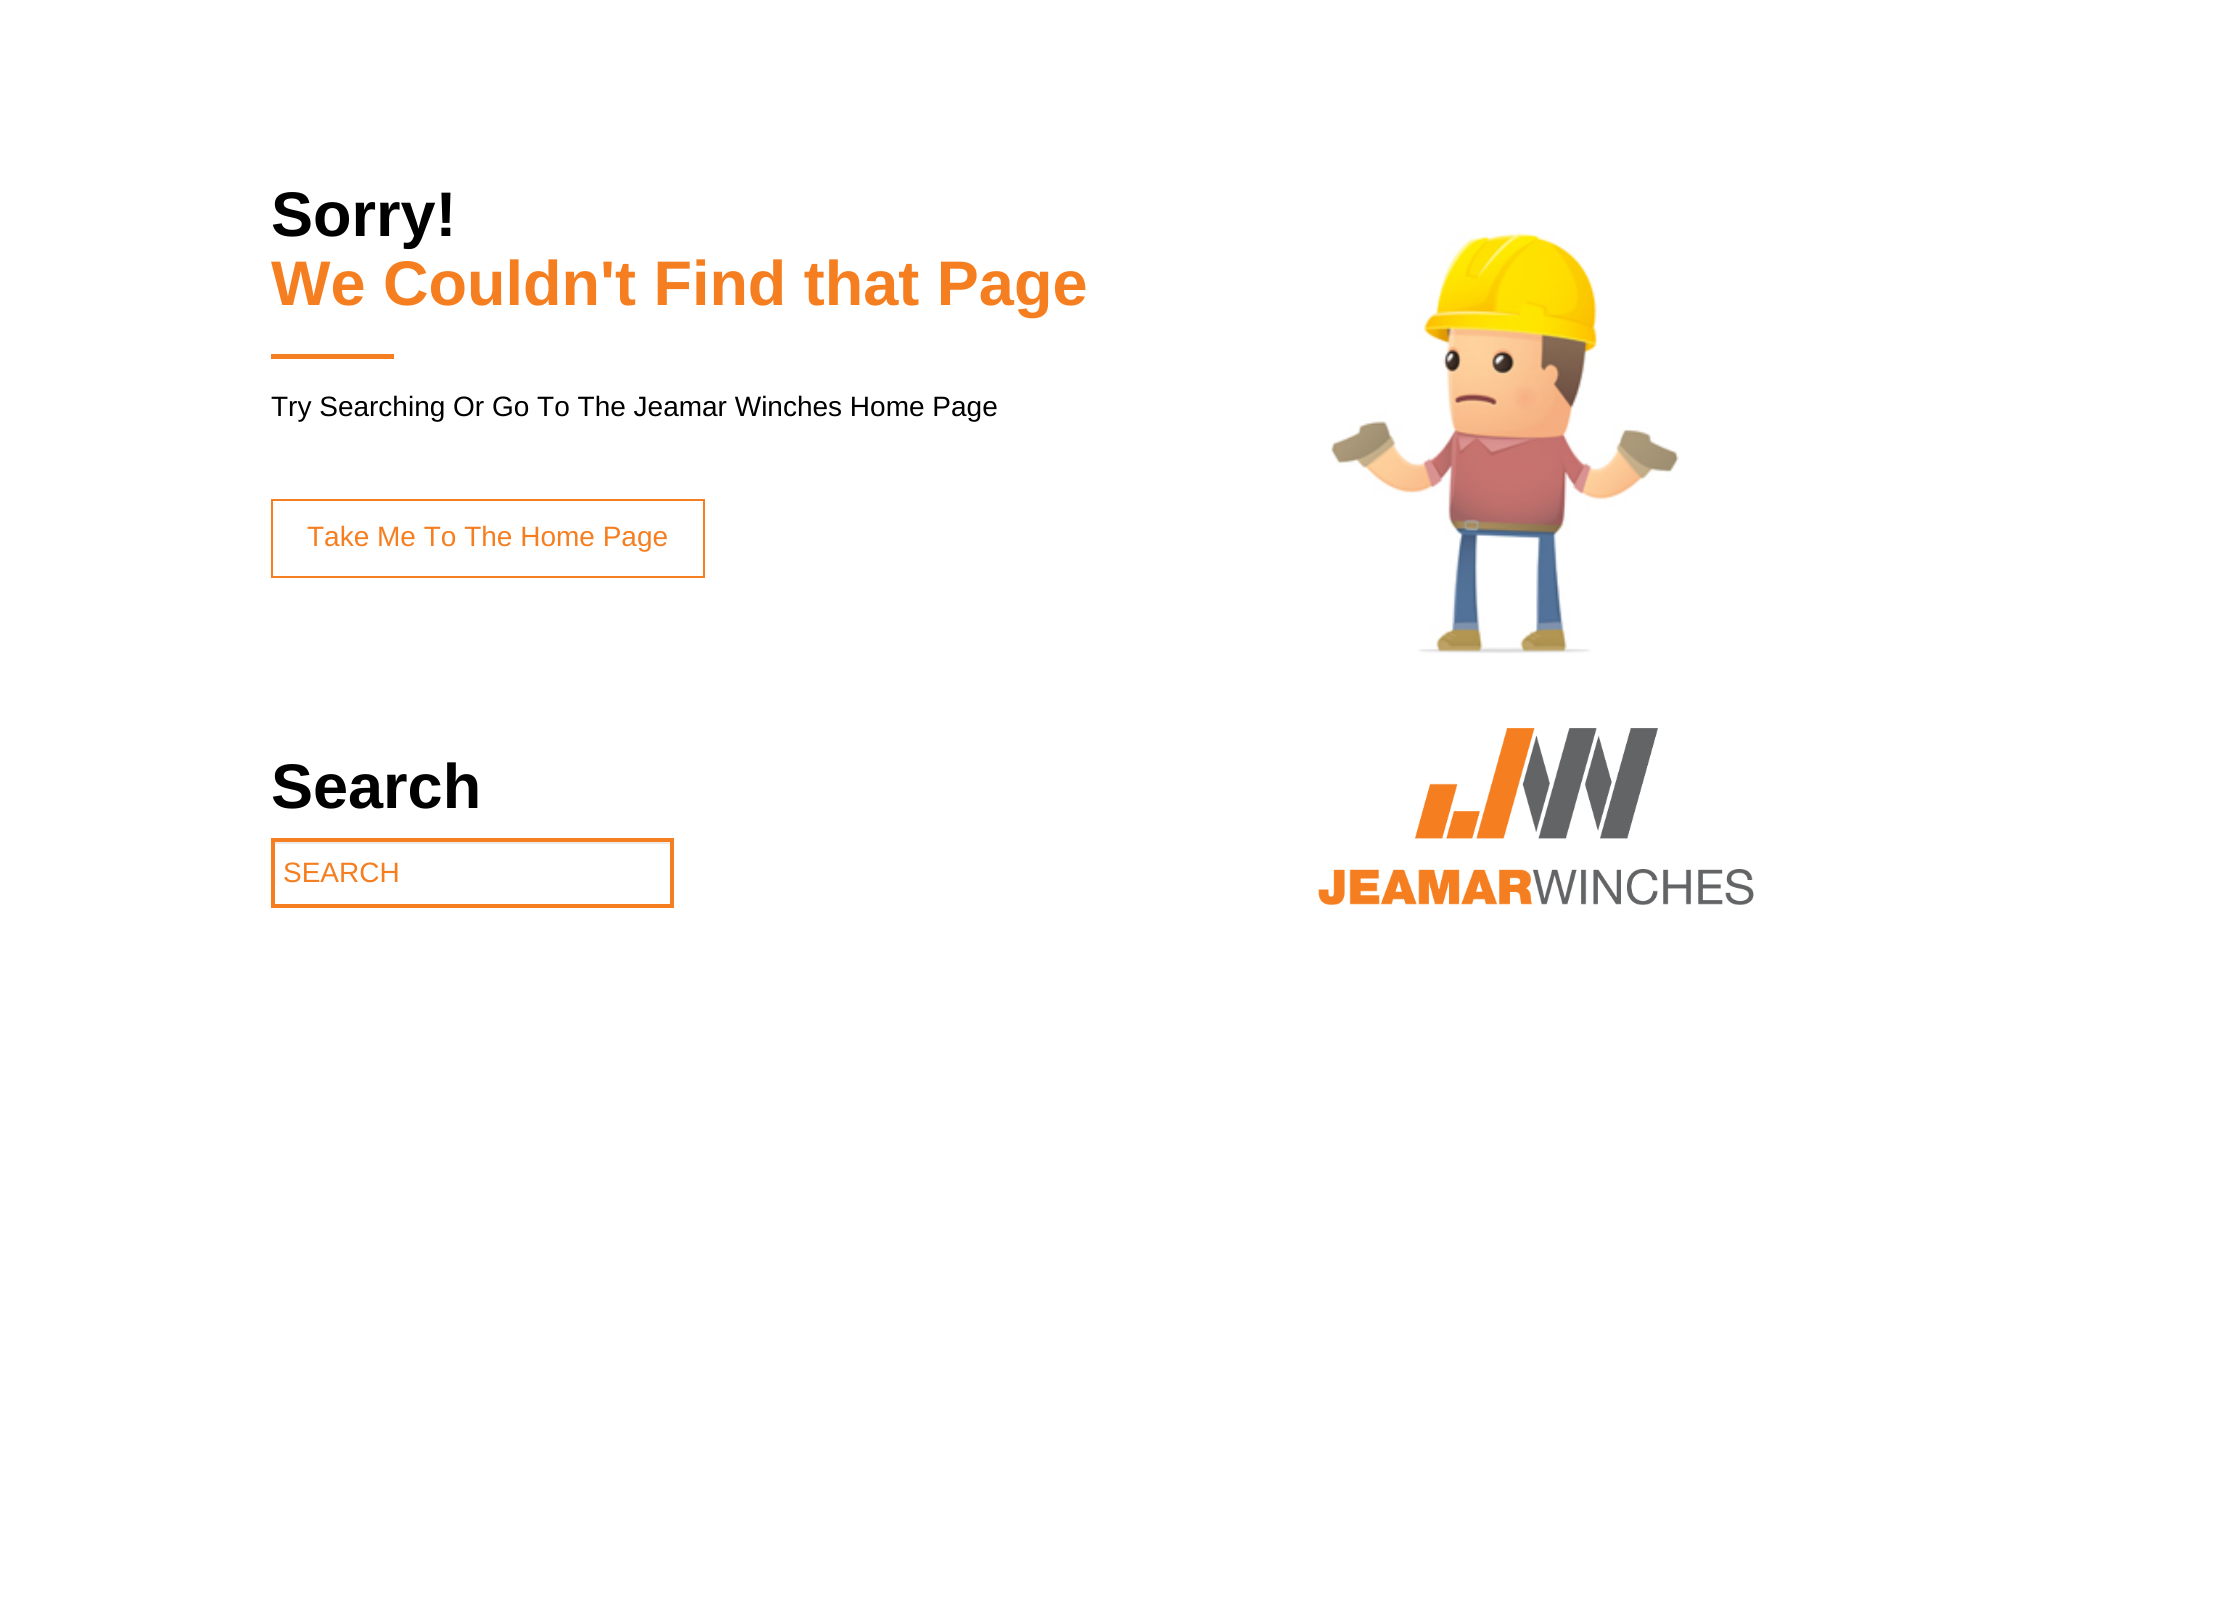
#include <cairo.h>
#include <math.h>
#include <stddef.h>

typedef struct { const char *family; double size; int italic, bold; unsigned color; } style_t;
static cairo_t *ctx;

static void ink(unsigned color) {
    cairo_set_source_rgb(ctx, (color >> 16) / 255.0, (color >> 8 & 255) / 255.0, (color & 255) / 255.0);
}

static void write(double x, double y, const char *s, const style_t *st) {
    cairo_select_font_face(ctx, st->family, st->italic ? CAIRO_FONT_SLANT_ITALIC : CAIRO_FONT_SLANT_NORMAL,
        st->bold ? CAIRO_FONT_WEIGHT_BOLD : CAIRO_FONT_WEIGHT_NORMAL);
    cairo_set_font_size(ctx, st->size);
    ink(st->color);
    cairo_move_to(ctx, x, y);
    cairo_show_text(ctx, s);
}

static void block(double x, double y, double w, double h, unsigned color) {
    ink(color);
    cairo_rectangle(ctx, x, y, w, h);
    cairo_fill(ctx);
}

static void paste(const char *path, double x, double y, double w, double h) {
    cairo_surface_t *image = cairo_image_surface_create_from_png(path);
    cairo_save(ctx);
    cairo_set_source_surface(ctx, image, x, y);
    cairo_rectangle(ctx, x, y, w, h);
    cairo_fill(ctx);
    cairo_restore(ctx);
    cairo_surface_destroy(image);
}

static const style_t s1 = {"Liberation Sans", 63, 0, 1, 0x000000};
static const style_t s2 = {"Liberation Sans", 63, 0, 1, 0xf57e20};
static const style_t s3 = {"Liberation Sans", 28, 0, 0, 0x000000};
static const style_t s4 = {"Liberation Sans", 28, 0, 0, 0xf57e20};

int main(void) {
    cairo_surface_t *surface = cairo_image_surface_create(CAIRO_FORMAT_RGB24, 2232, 1611);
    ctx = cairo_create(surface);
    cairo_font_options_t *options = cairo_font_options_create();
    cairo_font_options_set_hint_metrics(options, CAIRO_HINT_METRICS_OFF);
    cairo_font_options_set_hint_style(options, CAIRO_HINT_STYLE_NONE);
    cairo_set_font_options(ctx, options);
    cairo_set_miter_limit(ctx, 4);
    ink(0xffffff);
    cairo_paint(ctx);
    write(271, 236, "Sorry!", &s1);
    write(271, 305, "We Couldn't Find that Page", &s2);
    block(271, 354, 123, 5, 0xf57e20);
    write(271, 416, "Try Searching Or Go To The Jeamar Winches Home Page", &s3);
    cairo_rectangle(ctx, 272, 500, 432, 77);
    ink(0xf57e20);
    cairo_stroke(ctx);
    write(307, 546, "Take Me To The Home Page", &s4);
    write(271, 808, "Search", &s1);
    block(275, 842, 395, 2, 0xececec);
    cairo_rectangle(ctx, 273, 840, 399, 66);
    ink(0xf57e20);
    cairo_set_line_width(ctx, 4);
    cairo_stroke(ctx);
    write(283, 882, "SEARCH", &s4);
    paste("pic1.png", 1331, 232, 348, 422);
    paste("pic2.png", 1318, 728, 436, 177);
    cairo_surface_write_to_png(surface, "screenshot.png");
    cairo_font_options_destroy(options);
    cairo_destroy(ctx);
    cairo_surface_destroy(surface);
    return 0;
}
